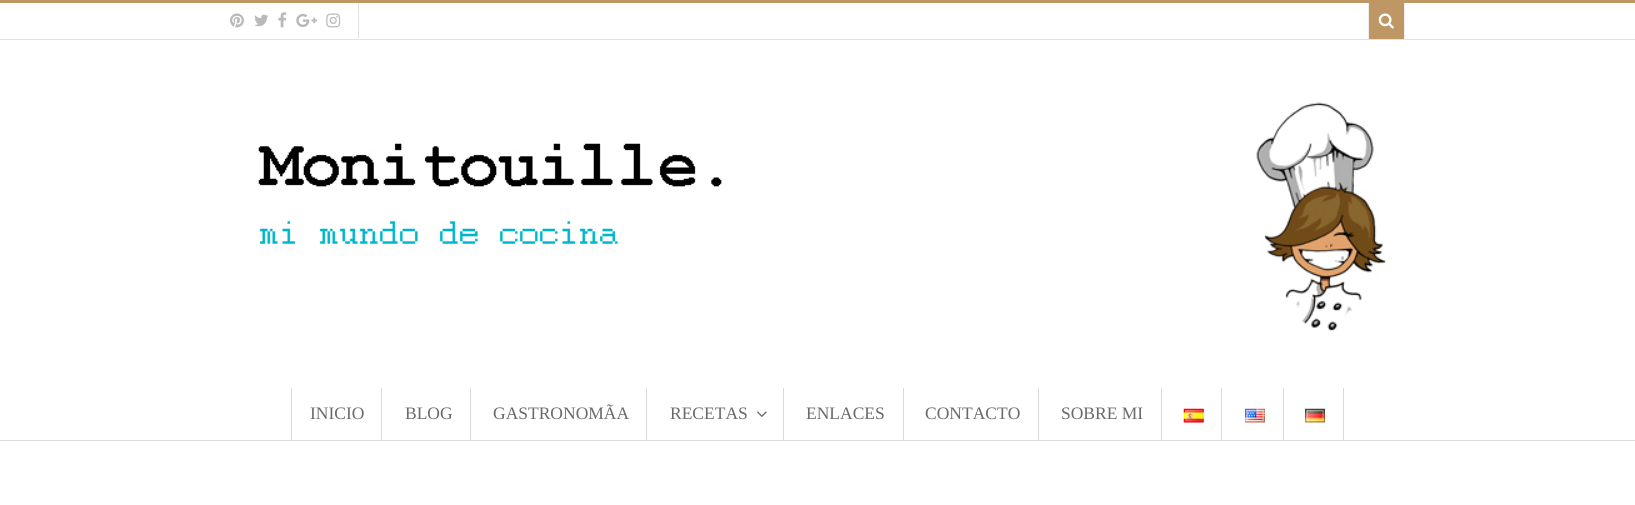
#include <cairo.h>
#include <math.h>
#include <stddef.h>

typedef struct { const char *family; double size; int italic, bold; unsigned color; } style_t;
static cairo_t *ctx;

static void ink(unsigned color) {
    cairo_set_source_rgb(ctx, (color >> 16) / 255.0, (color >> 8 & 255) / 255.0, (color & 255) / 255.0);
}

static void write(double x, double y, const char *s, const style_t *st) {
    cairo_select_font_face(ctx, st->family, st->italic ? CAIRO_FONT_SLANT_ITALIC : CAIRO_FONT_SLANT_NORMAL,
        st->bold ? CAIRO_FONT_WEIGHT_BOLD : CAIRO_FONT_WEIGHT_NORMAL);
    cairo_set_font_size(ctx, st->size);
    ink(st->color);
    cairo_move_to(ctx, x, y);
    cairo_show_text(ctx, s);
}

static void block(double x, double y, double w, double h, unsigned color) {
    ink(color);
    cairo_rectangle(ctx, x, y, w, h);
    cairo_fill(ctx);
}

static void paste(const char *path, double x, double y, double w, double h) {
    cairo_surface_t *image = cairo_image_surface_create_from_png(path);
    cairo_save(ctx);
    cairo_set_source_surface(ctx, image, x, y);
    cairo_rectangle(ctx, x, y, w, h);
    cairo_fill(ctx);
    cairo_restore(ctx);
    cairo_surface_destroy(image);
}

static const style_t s1 = {"Liberation Serif", 17.5, 0, 0, 0x6a6a6a};

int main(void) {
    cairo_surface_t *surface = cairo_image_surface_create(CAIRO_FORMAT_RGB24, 1635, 505);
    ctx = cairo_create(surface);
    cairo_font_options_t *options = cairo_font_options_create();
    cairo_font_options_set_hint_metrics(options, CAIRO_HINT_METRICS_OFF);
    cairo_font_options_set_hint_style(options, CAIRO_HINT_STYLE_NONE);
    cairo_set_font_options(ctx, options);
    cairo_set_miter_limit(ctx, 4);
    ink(0xffffff);
    cairo_paint(ctx);
    block(0, 0, 1635, 3, 0xbf9764);
    block(0, 39, 1635, 1, 0xe1e1e1);
    block(358, 3, 1, 35, 0xe1e1e1);
    paste("pic1.png", 230, 13, 14, 15);
    paste("pic2.png", 254, 14, 15, 13);
    paste("pic3.png", 278, 12, 9, 16);
    paste("pic4.png", 296, 13, 22, 14);
    paste("pic5.png", 326, 13, 15, 15);
    block(1369, 3, 35, 36, 0xbf9764);
    block(1404, 3, 1, 36, 0xeeeeee);
    block(1368, 3, 1, 36, 0xeeeeee);
    paste("pic6.png", 1378, 13, 16, 16);
    paste("pic7.png", 258, 102, 1128, 229);
    block(0, 440, 1635, 1, 0xdbdbdb);
    block(381, 388, 1, 52, 0xdbdbdb);
    block(291, 388, 1, 52, 0xdbdbdb);
    write(310, 419, "INICIO", &s1);
    block(470, 388, 1, 52, 0xdbdbdb);
    write(405, 419, "BLOG", &s1);
    block(646, 388, 1, 52, 0xdbdbdb);
    write(493, 419, "GASTRONOMÃA", &s1);
    block(783, 388, 1, 52, 0xdbdbdb);
    write(670, 419, "RECETAS", &s1);
    paste("pic8.png", 757, 411, 10, 6);
    block(903, 388, 1, 52, 0xdbdbdb);
    write(806, 419, "ENLACES", &s1);
    block(1038, 388, 1, 52, 0xdbdbdb);
    write(925, 419, "CONTACTO", &s1);
    block(1161, 388, 1, 52, 0xdbdbdb);
    write(1061, 419, "SOBRE MI", &s1);
    block(1221, 388, 1, 52, 0xdbdbdb);
    paste("pic9.png", 1183, 408, 21, 15);
    block(1283, 388, 1, 52, 0xdbdbdb);
    paste("pic10.png", 1245, 408, 20, 15);
    block(1343, 388, 1, 52, 0xdbdbdb);
    paste("pic11.png", 1305, 408, 20, 15);
    cairo_surface_write_to_png(surface, "screenshot.png");
    cairo_font_options_destroy(options);
    cairo_destroy(ctx);
    cairo_surface_destroy(surface);
    return 0;
}
